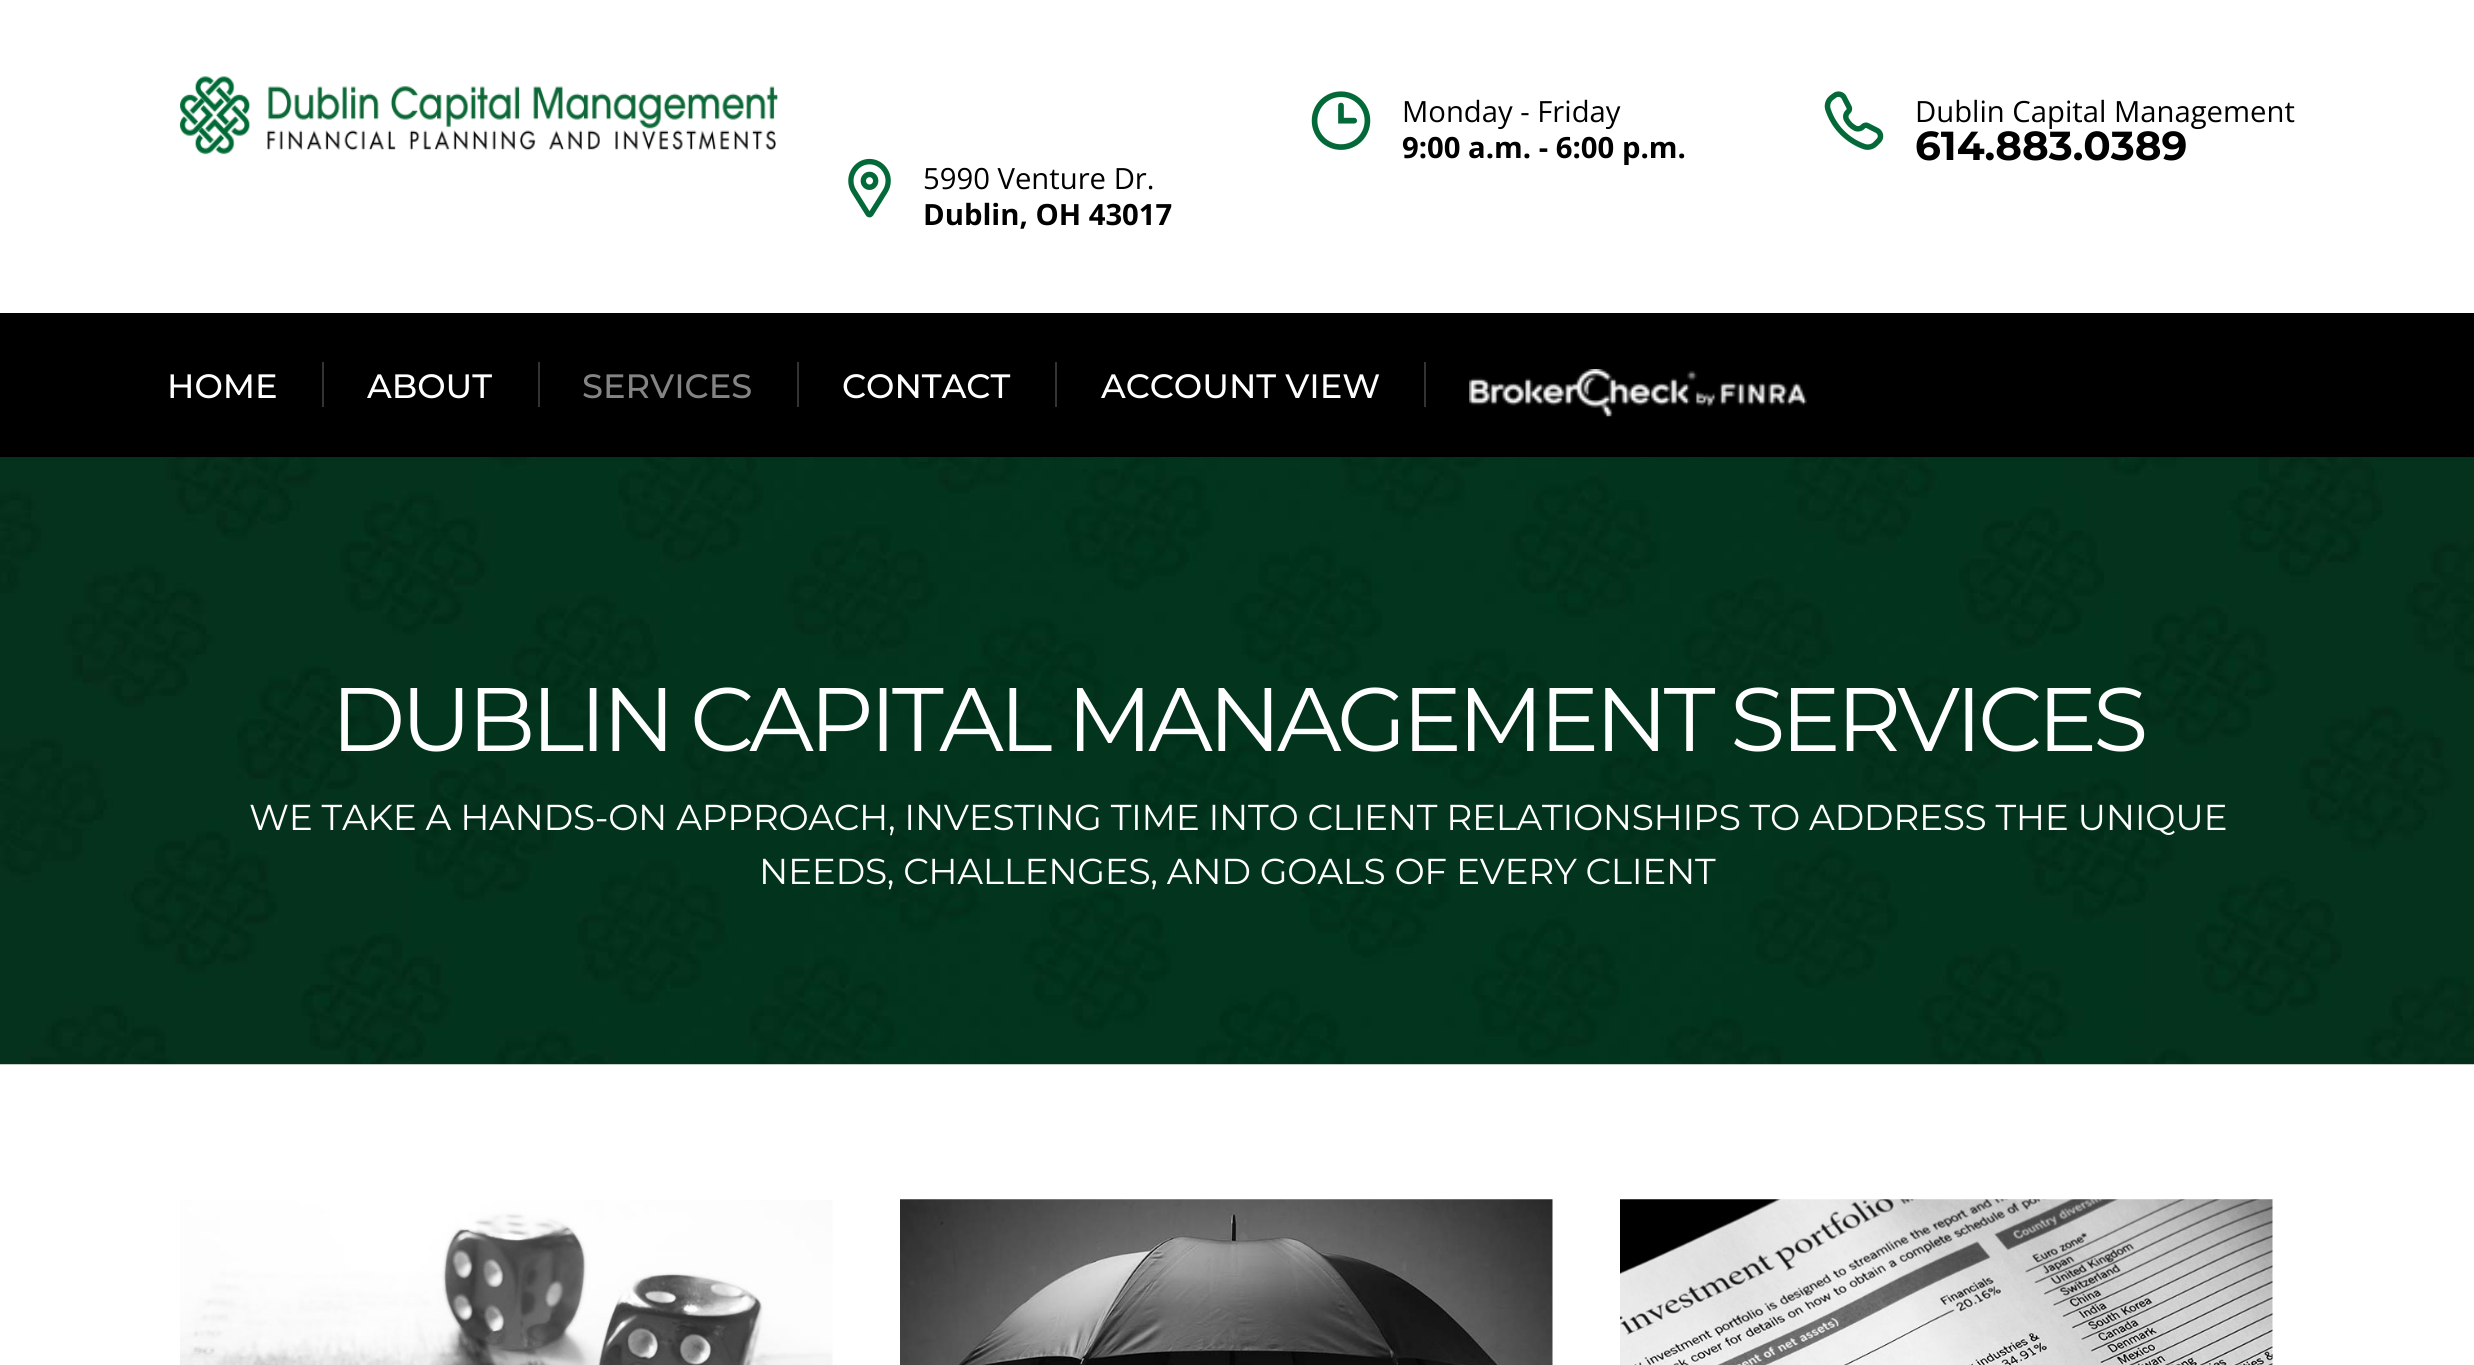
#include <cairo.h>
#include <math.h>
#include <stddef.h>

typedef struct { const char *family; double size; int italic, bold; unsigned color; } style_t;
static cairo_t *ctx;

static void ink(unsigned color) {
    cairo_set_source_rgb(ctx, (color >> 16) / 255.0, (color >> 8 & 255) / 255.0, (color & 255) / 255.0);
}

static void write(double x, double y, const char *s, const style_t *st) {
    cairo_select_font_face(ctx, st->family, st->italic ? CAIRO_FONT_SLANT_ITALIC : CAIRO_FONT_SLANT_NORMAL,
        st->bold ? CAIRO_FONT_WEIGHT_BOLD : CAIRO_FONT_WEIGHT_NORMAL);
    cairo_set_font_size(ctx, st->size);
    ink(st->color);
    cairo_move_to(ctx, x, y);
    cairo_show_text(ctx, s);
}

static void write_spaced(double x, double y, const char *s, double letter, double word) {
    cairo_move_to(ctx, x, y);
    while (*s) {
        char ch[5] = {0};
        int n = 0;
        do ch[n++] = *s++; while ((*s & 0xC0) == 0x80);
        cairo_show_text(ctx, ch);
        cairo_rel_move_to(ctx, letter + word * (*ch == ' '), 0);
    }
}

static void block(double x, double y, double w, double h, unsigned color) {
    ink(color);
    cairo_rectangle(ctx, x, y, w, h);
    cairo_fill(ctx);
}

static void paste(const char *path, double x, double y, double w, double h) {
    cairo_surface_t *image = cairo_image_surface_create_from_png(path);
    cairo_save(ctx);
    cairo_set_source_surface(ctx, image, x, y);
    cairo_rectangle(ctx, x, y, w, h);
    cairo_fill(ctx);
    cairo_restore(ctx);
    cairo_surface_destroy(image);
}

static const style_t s1 = {"Open Sans", 29.25, 0, 0, 0x000000};
static const style_t s2 = {"Open Sans", 29.25, 0, 1, 0x000000};
static const style_t s3 = {"Montserrat", 40.5, 0, 1, 0x000000};
static const style_t s4 = {"Montserrat Medium", 33.75, 0, 0, 0xffffff};
static const style_t s5 = {"Montserrat Medium", 33.75, 0, 0, 0x848484};

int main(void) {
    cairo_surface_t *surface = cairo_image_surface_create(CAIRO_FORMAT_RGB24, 2474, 1365);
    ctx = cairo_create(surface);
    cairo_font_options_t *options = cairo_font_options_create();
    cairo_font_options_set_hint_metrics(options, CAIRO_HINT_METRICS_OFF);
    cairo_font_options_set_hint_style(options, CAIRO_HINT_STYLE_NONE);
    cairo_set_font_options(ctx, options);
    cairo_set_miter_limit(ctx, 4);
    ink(0xffffff);
    cairo_paint(ctx);
    paste("pic1.png", 180, 76, 599, 79);
    paste("pic2.png", 1311, 91, 60, 59);
    write(1402, 122, "Monday - Friday", &s1);
    write(1402, 158, "9:00 a.m. - 6:00 p.m.", &s2);
    paste("pic3.png", 1824, 91, 60, 59);
    write(1915, 122, "Dublin Capital Management", &s1);
    write(1915, 160, "614.883.0389", &s3);
    paste("pic4.png", 848, 158, 43, 60);
    write(923, 189, "5990 Venture Dr.", &s1);
    write(923, 225, "Dublin, OH 43017", &s2);
    block(0, 313, 2474, 144, 0x000000);
    write(167, 398, "HOME", &s4);
    block(322, 362, 2, 45, 0x333333);
    write(367, 398, "ABOUT", &s4);
    block(538, 362, 2, 45, 0x333333);
    write(582, 398, "SERVICES", &s5);
    block(797, 362, 2, 45, 0x333333);
    write(842, 398, "CONTACT", &s4);
    block(1055, 362, 2, 45, 0x333333);
    write(1101, 398, "ACCOUNT VIEW", &s4);
    block(1424, 362, 2, 45, 0x333333);
    paste("pic5.png", 1469, 369, 338, 48);
    paste("pic6.png", 0, 457, 2474, 608);
    cairo_select_font_face(ctx, "Montserrat", CAIRO_FONT_SLANT_NORMAL, CAIRO_FONT_WEIGHT_NORMAL);
    cairo_set_font_size(ctx, 90);
    ink(0xffffff);
    write_spaced(331, 751, "DUBLIN CAPITAL MANAGEMENT SERVICES", -4.5, 0);
    cairo_set_font_size(ctx, 36);
    write_spaced(249, 830, "WE TAKE A HANDS-ON APPROACH, INVESTING TIME INTO CLIENT RELATIONSHIPS TO ADDRESS THE UNIQUE", -0.32, 0);
    write_spaced(759, 884, "NEEDS, CHALLENGES, AND GOALS OF EVERY CLIENT", -0.32, 0);
    paste("pic7.png", 180, 1200, 653, 165);
    paste("pic8.png", 900, 1199, 653, 166);
    paste("pic9.png", 1620, 1199, 653, 166);
    cairo_surface_write_to_png(surface, "screenshot.png");
    cairo_font_options_destroy(options);
    cairo_destroy(ctx);
    cairo_surface_destroy(surface);
    return 0;
}
